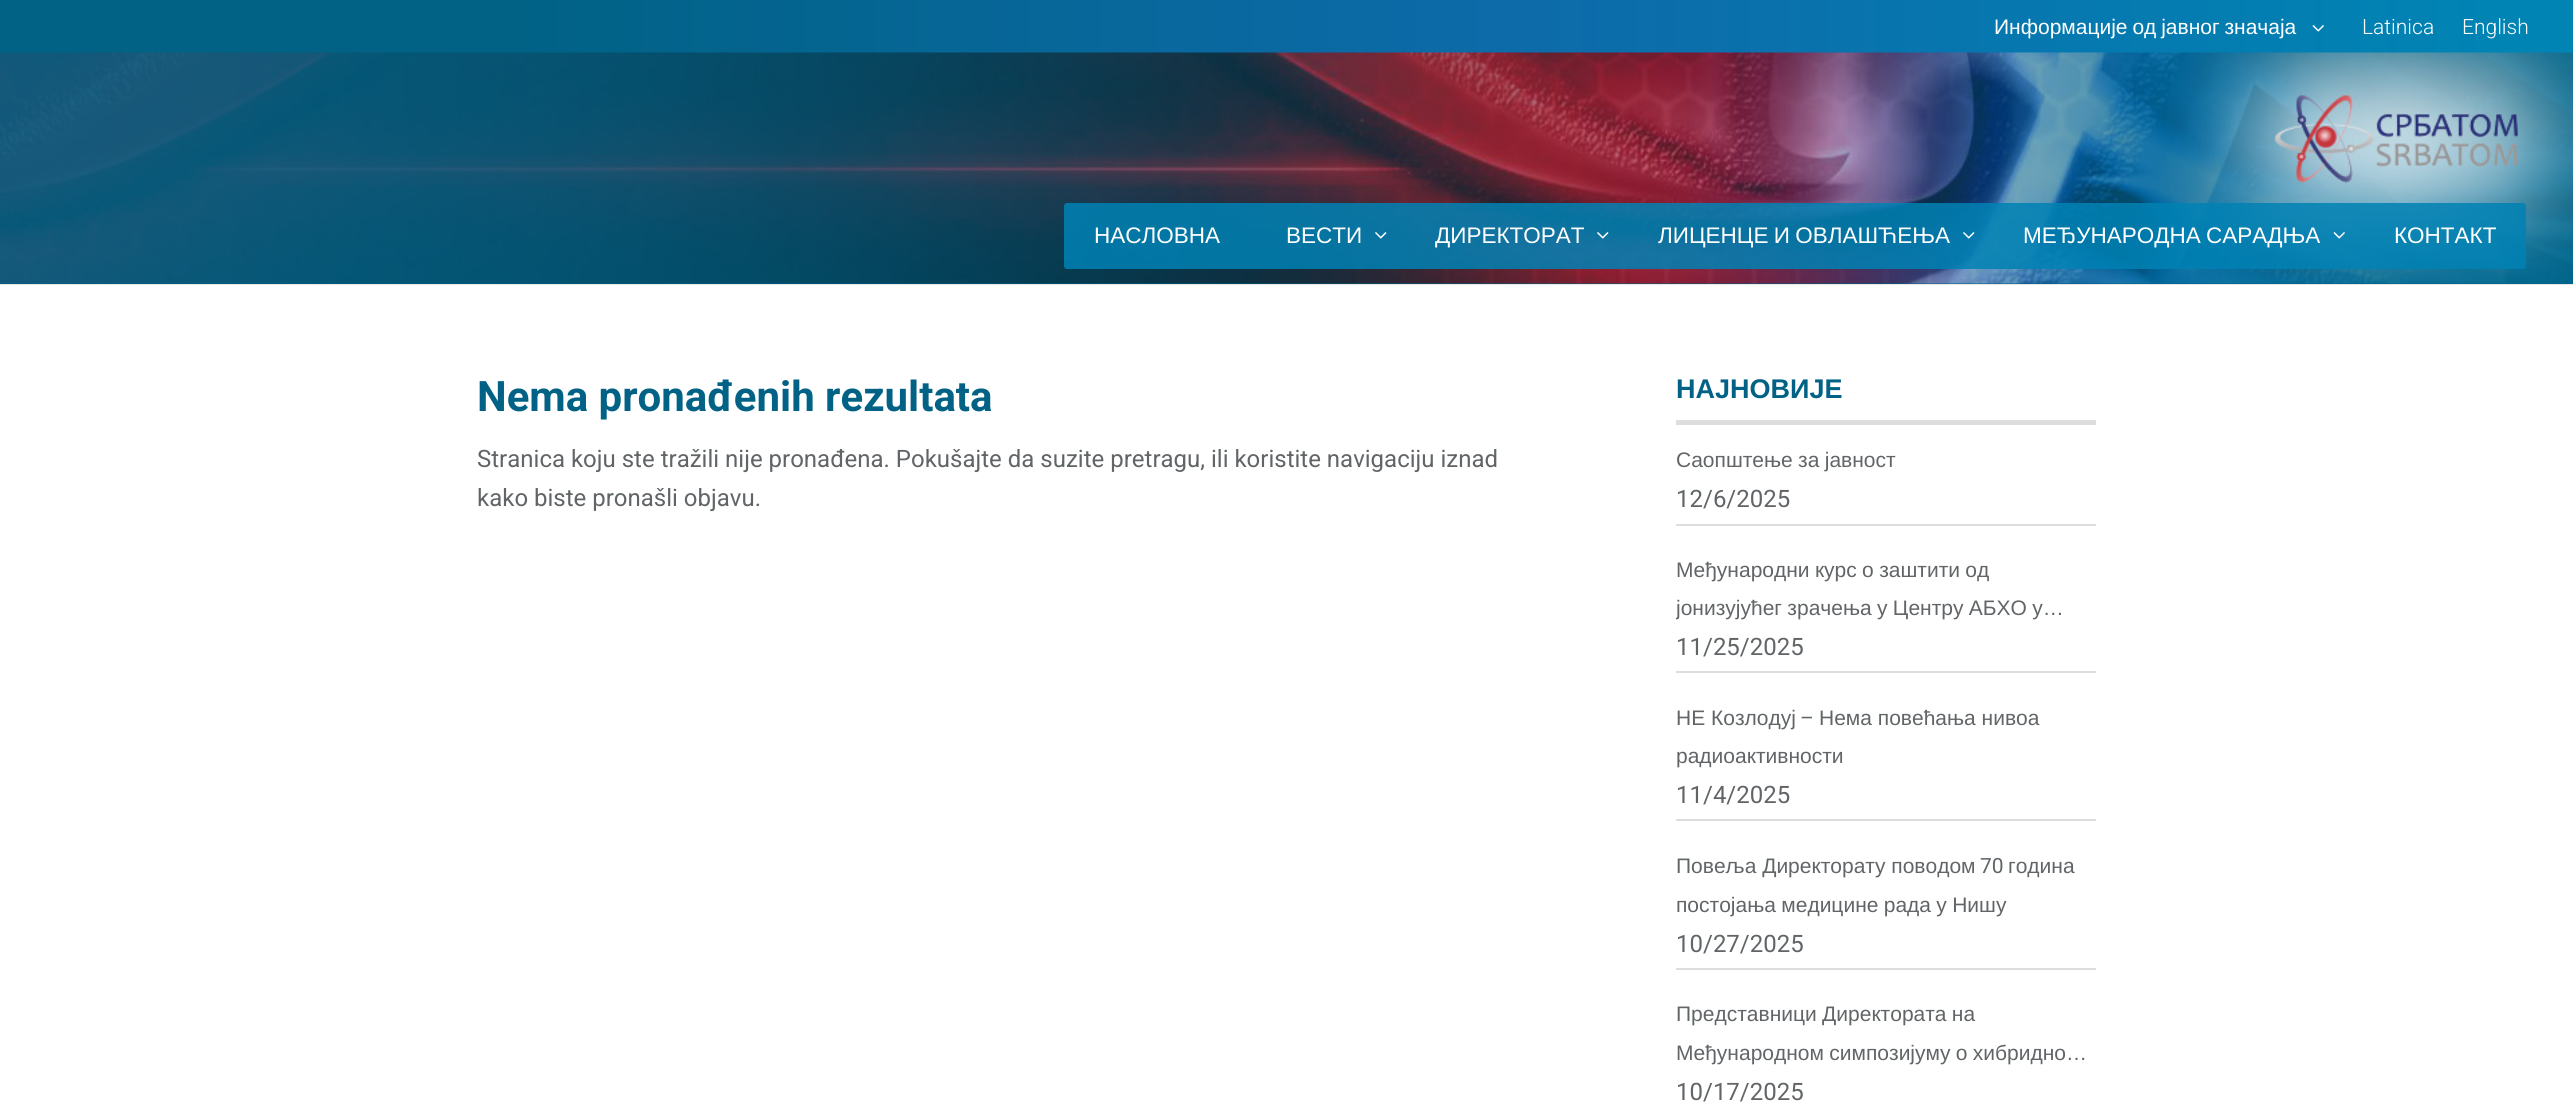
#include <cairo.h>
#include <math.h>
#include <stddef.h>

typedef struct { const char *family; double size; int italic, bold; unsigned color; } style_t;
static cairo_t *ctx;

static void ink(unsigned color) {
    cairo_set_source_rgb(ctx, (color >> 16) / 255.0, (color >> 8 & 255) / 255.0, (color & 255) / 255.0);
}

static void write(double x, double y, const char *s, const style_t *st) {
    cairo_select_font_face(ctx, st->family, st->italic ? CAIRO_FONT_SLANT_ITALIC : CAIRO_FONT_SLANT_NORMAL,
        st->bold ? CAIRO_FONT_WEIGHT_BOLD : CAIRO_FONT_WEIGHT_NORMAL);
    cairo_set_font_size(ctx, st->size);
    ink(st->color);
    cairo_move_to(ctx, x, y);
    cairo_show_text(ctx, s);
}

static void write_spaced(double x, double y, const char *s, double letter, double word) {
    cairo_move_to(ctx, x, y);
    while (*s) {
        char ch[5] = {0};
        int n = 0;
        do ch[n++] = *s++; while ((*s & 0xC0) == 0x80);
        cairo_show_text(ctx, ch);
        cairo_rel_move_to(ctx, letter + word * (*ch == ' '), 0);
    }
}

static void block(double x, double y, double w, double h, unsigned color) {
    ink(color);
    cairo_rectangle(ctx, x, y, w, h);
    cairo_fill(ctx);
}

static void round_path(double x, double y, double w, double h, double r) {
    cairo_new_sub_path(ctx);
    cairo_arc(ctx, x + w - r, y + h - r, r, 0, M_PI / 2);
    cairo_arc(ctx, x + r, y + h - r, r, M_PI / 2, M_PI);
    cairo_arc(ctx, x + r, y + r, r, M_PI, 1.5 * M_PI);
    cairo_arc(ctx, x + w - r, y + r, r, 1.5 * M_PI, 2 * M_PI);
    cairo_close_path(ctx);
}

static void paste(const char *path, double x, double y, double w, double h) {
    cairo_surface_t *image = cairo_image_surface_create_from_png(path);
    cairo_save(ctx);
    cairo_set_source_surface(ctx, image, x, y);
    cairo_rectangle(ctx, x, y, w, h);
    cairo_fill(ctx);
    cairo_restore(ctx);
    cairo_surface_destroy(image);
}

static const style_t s1 = {"Roboto Light", 21, 0, 0, 0xffffff};
static const style_t s2 = {"Liberation Sans", 22.5, 0, 0, 0xffffff};
static const style_t s3 = {"Roboto", 42, 0, 1, 0x016286};
static const style_t s4 = {"Roboto", 24, 0, 0, 0x616567};
static const style_t s5 = {"Liberation Sans", 27, 0, 1, 0x016286};
static const style_t s6 = {"Liberation Sans", 21, 0, 0, 0x616567};
static const style_t s7 = {"Roboto", 21, 0, 0, 0x616567};

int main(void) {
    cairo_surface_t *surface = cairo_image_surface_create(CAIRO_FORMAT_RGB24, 2573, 1103);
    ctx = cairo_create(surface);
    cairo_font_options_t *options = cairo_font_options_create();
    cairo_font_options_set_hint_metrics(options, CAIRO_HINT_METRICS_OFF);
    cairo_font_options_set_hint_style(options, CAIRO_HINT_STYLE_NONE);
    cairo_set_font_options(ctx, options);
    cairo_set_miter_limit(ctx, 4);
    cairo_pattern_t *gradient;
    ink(0xffffff);
    cairo_paint(ctx);
    gradient = cairo_pattern_create_linear(0, 26, 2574, 26);
    cairo_pattern_add_color_stop_rgba(gradient, 0.2, 0.004, 0.384, 0.525, 1);
    cairo_pattern_add_color_stop_rgba(gradient, 0.6, 0.051, 0.42, 0.667, 1);
    cairo_pattern_add_color_stop_rgba(gradient, 0.97, 0, 0.518, 0.706, 1);
    cairo_set_source(ctx, gradient);
    cairo_pattern_destroy(gradient);
    cairo_rectangle(ctx, 0, 0, 2573, 53);
    cairo_fill(ctx);
    cairo_select_font_face(ctx, "Liberation Sans", CAIRO_FONT_SLANT_NORMAL, CAIRO_FONT_WEIGHT_NORMAL);
    cairo_set_font_size(ctx, 21);
    ink(0xffffff);
    write_spaced(1994, 34, "Информације од јавног значаја", 0, -1);
    paste("pic1.png", 2312, 25, 12, 7);
    write(2362, 34, "Latinica", &s1);
    write(2462, 34, "English", &s1);
    block(0, 284, 2573, 1, 0xe6e6e6);
    block(0, 283, 2573, 1, 0x016286);
    paste("pic2.png", 0, 52, 2573, 232);
    cairo_set_source_rgba(ctx, 0, 0.51, 0.706, 0.85);
    round_path(1064, 203, 1462, 66, 3);
    cairo_fill(ctx);
    write(1094, 243, "НАСЛОВНА", &s2);
    write(1286, 243, "ВЕСТИ", &s2);
    paste("pic3.png", 1375, 232, 12, 7);
    write(1435, 243, "ДИРЕКТОРАТ", &s2);
    paste("pic4.png", 1597, 232, 12, 7);
    write_spaced(1658, 243, "ЛИЦЕНЦЕ И ОВЛАШЋЕЊА", 0, -1);
    paste("pic5.png", 1963, 232, 12, 7);
    write_spaced(2023, 243, "МЕЂУНАРОДНА САРАДЊА", 0, -1);
    paste("pic6.png", 2333, 232, 12, 7);
    write(2394, 243, "КОНТАКТ", &s2);
    write(477, 411, "Nema pronađenih rezultata", &s3);
    write(477, 467, "Stranica koju ste tražili nije pronađena. Pokušajte da suzite pretragu, ili koristite navigaciju iznad", &s4);
    write(477, 506, "kako biste pronašli objavu.", &s4);
    block(1676, 420, 420, 5, 0xdddddd);
    write(1676, 398, "НАЈНОВИЈЕ", &s5);
    block(1676, 524, 420, 2, 0xdddddd);
    cairo_select_font_face(ctx, "Liberation Sans", CAIRO_FONT_SLANT_NORMAL, CAIRO_FONT_WEIGHT_NORMAL);
    cairo_set_font_size(ctx, 21);
    ink(0x616567);
    write_spaced(1676, 467, "Саопштење за јавност", 0, -0.5);
    write(1676, 507, "12/6/2025", &s4);
    block(1676, 671, 420, 2, 0xdddddd);
    cairo_select_font_face(ctx, "Liberation Sans", CAIRO_FONT_SLANT_NORMAL, CAIRO_FONT_WEIGHT_NORMAL);
    cairo_set_font_size(ctx, 21);
    ink(0x616567);
    write_spaced(1676, 577, "Међународни курс о заштити од", 0, -0.5);
    cairo_save(ctx);
    cairo_rectangle(ctx, 1676, 552, 420, 77);
    cairo_clip(ctx);
    write_spaced(1676, 615, "јонизујућег зрачења у Центру АБХО у…", 0, -0.5);
    cairo_restore(ctx);
    write(1676, 655, "11/25/2025", &s4);
    block(1676, 819, 420, 2, 0xdddddd);
    write(1676, 725, "НЕ Козлодуј", &s6);
    write(1800, 725, "–", &s7);
    write(1819, 725, "Нема повећања нивоа", &s6);
    write(1676, 763, "радиоактивности", &s6);
    write(1676, 803, "11/4/2025", &s4);
    block(1676, 968, 420, 2, 0xdddddd);
    write(1676, 873, "Повеља Директорату поводом", &s6);
    write(1980, 873, "70", &s7);
    write(2008, 873, "година", &s6);
    write_spaced(1676, 912, "постојања медицине рада у Нишу", 0, -0.5);
    write(1676, 952, "10/27/2025", &s4);
    cairo_select_font_face(ctx, "Liberation Sans", CAIRO_FONT_SLANT_NORMAL, CAIRO_FONT_WEIGHT_NORMAL);
    cairo_set_font_size(ctx, 21);
    write_spaced(1676, 1021, "Представници Директората на", 0, -0.5);
    write_spaced(1676, 1060, "Међународном симпозијуму о хибридно…", 0, -0.5);
    write(1676, 1100, "10/17/2025", &s4);
    cairo_surface_write_to_png(surface, "screenshot.png");
    cairo_font_options_destroy(options);
    cairo_destroy(ctx);
    cairo_surface_destroy(surface);
    return 0;
}
